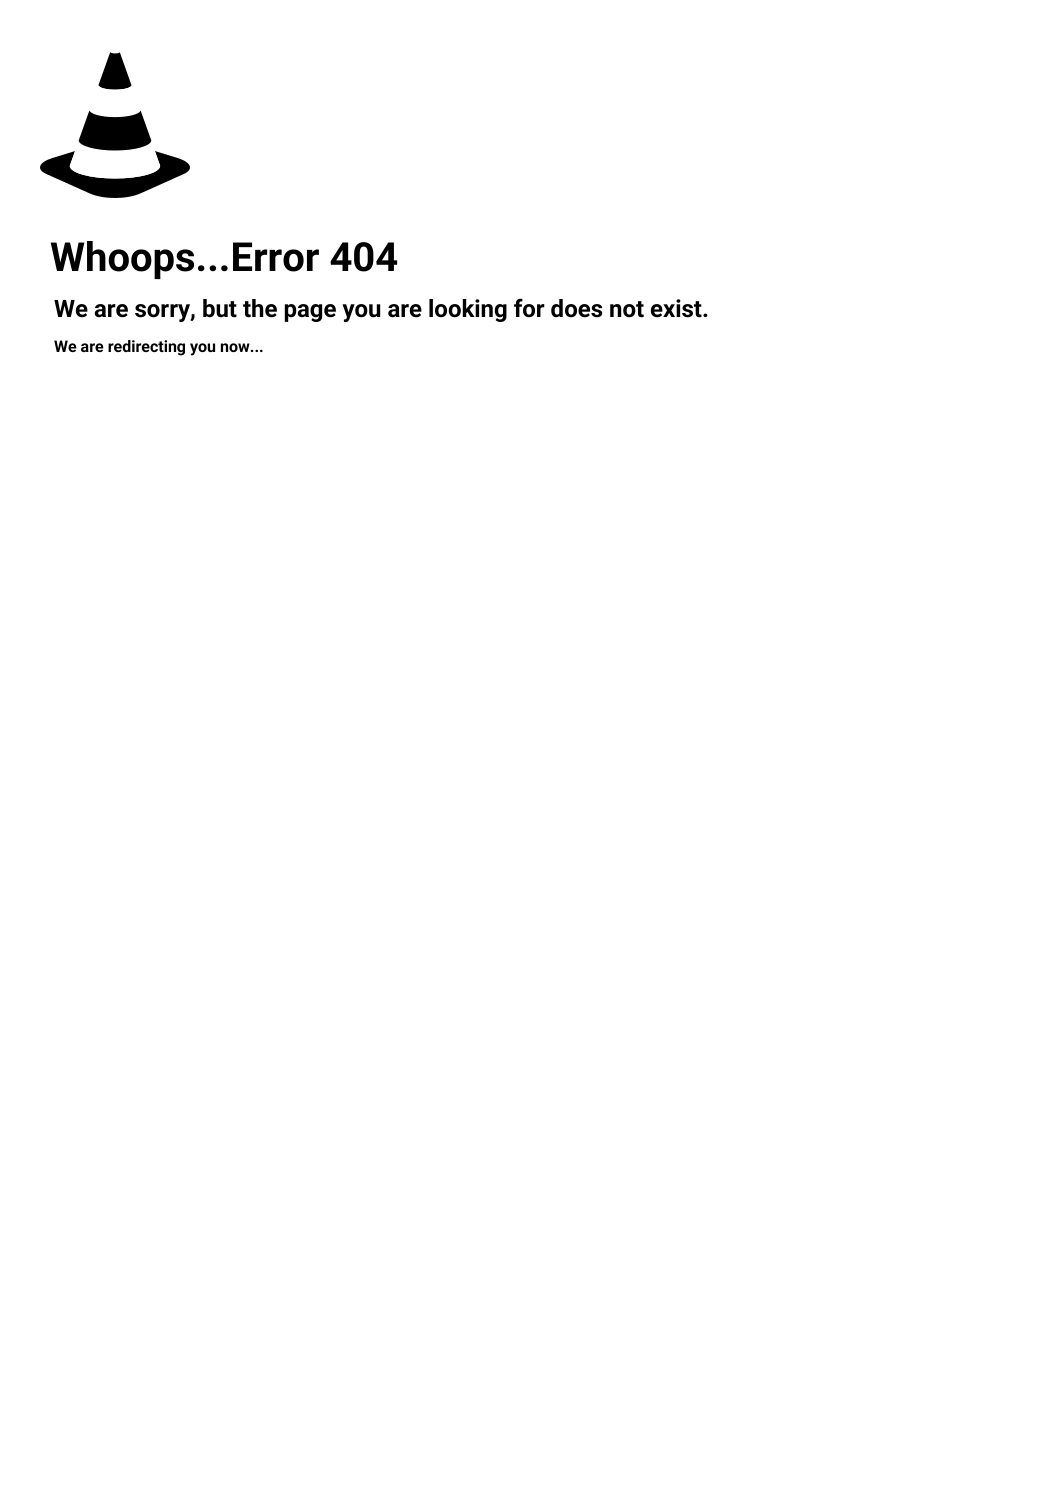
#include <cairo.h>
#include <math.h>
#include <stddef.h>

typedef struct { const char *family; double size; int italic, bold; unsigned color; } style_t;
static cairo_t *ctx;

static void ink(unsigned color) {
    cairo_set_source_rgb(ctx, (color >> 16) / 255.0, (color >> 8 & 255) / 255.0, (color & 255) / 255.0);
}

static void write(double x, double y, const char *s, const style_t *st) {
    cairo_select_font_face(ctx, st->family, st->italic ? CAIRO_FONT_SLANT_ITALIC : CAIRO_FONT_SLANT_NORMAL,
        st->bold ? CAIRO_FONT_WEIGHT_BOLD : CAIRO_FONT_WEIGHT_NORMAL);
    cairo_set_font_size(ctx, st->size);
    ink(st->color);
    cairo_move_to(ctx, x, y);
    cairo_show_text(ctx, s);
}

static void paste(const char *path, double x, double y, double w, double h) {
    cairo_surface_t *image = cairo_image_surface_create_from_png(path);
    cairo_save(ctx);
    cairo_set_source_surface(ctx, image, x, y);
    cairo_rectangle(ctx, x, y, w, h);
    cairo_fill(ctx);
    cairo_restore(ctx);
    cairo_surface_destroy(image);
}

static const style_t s1 = {"Roboto", 40, 0, 1, 0x000000};
static const style_t s2 = {"Roboto", 24, 0, 1, 0x000000};
static const style_t s3 = {"Roboto", 16, 0, 1, 0x000000};

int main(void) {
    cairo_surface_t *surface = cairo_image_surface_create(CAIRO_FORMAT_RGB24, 1039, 1504);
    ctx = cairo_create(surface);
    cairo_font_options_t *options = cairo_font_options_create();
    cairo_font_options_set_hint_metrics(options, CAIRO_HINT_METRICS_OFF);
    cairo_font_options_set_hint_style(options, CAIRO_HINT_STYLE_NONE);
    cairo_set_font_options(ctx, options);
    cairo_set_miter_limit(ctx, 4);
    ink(0xffffff);
    cairo_paint(ctx);
    paste("pic1.png", 40, 52, 150, 146);
    write(50, 271, "Whoops...Error 404", &s1);
    write(54, 317, "We are sorry, but the page you are looking for does not exist.", &s2);
    write(54, 352, "We are redirecting you now...", &s3);
    cairo_surface_write_to_png(surface, "screenshot.png");
    cairo_font_options_destroy(options);
    cairo_destroy(ctx);
    cairo_surface_destroy(surface);
    return 0;
}
